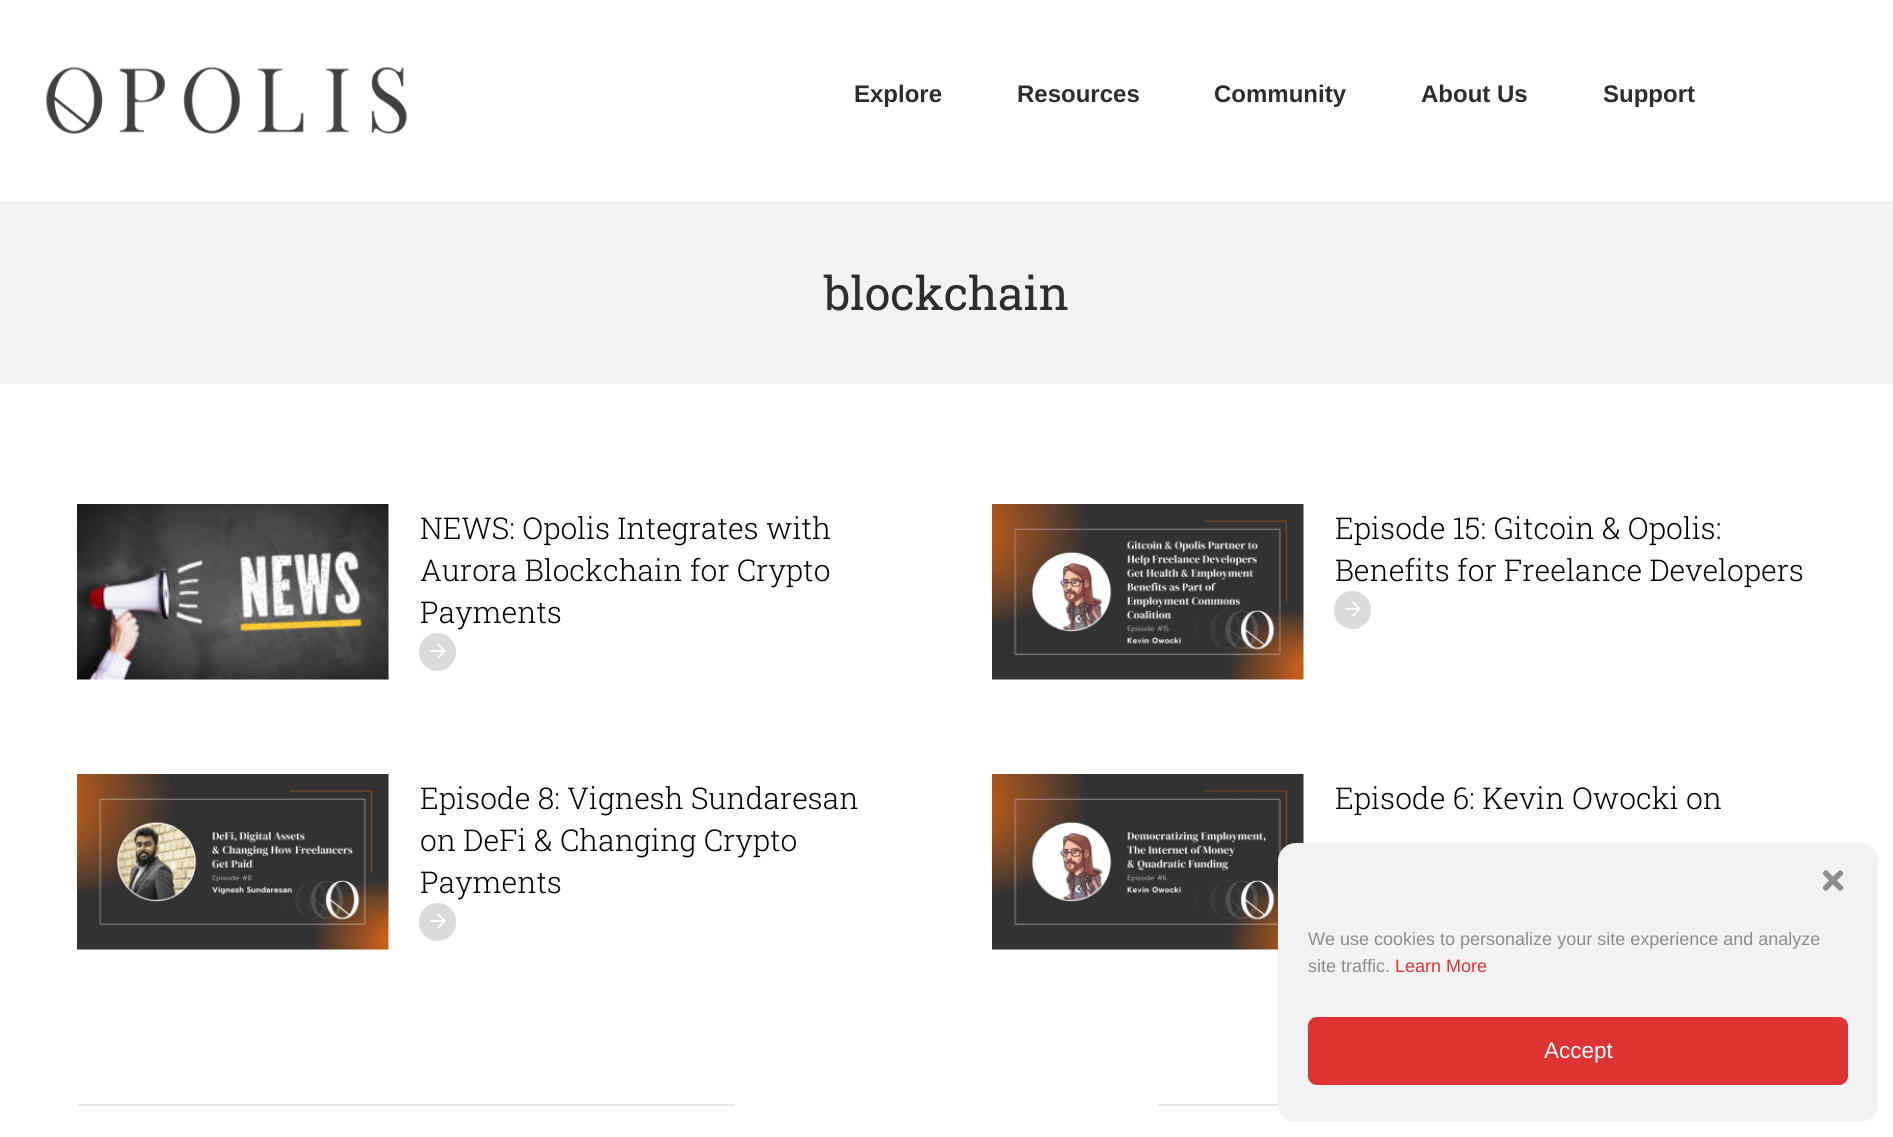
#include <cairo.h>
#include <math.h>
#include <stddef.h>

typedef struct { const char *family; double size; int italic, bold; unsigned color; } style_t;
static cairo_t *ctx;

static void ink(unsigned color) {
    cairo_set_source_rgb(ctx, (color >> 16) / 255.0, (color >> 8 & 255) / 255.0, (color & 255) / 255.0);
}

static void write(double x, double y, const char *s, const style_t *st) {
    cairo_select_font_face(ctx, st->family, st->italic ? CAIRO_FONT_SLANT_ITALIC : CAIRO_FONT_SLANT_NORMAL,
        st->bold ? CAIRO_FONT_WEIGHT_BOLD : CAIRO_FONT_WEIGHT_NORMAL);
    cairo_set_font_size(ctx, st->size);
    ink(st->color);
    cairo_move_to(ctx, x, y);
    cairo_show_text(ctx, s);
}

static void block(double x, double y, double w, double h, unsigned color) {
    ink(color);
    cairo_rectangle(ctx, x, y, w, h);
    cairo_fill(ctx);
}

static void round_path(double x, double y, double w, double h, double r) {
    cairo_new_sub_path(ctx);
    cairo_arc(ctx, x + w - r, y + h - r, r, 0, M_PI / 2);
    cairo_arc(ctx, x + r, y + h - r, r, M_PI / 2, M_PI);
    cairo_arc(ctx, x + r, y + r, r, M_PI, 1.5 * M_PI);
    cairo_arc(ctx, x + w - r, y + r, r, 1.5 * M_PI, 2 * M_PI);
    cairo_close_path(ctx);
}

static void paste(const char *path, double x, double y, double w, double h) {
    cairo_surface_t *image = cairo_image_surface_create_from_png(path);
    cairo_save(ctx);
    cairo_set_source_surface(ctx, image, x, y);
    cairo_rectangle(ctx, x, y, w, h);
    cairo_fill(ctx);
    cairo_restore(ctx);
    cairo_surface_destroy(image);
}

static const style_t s1 = {"Liberation Sans", 24, 0, 1, 0x2d2d2d};
static const style_t s2 = {"Roboto Slab", 46.5, 0, 0, 0x2d2d2d};
static const style_t s3 = {"Roboto Slab Light", 30, 0, 0, 0x000000};
static const style_t s4 = {"Liberation Sans", 18, 0, 0, 0x8c8c8c};
static const style_t s5 = {"Liberation Sans", 18, 0, 0, 0xdd3333};
static const style_t s6 = {"Liberation Sans", 22.5, 0, 0, 0xffffff};

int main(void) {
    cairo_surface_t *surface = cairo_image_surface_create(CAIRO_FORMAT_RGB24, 1893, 1137);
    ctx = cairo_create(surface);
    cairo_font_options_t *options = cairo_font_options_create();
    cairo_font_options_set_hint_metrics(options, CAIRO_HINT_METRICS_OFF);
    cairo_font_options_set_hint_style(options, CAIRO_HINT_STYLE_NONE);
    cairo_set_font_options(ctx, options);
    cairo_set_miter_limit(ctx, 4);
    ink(0xffffff);
    cairo_paint(ctx);
    paste("pic1.png", 46, 67, 361, 67);
    write(854, 102, "Explore", &s1);
    write(1017, 102, "Resources", &s1);
    write(1214, 102, "Community", &s1);
    write(1421, 102, "About Us", &s1);
    write(1603, 102, "Support", &s1);
    block(0, 201, 1893, 183, 0xf2f2f2);
    write(824, 310, "blockchain", &s2);
    paste("pic2.png", 77, 504, 312, 176);
    write(420, 539, "NEWS: Opolis Integrates with", &s3);
    write(420, 581, "Aurora Blockchain for Crypto", &s3);
    write(420, 623, "Payments", &s3);
    ink(0xdbdbdb);
    round_path(419, 633, 37, 38, 18.5);
    cairo_fill(ctx);
    paste("pic3.png", 430, 643, 16, 16);
    paste("pic4.png", 992, 504, 312, 176);
    write(1335, 539, "Episode 15: Gitcoin & Opolis:", &s3);
    write(1335, 581, "Benefits for Freelance Developers", &s3);
    ink(0xdbdbdb);
    round_path(1334, 591, 37, 38, 18.5);
    cairo_fill(ctx);
    paste("pic3.png", 1345, 601, 16, 16);
    paste("pic5.png", 77, 774, 312, 176);
    write(420, 809, "Episode 8: Vignesh Sundaresan", &s3);
    write(420, 851, "on DeFi & Changing Crypto", &s3);
    write(420, 893, "Payments", &s3);
    ink(0xdbdbdb);
    round_path(419, 903, 37, 38, 18.5);
    cairo_fill(ctx);
    paste("pic3.png", 430, 913, 16, 16);
    paste("pic6.png", 992, 774, 312, 176);
    write(1335, 809, "Episode 6: Kevin Owocki on", &s3);
    block(78, 1104, 657, 2, 0xe6e6e6);
    block(1158, 1104, 121, 2, 0xe6e6e6);
    ink(0xf2f2f2);
    round_path(1278, 843, 600, 279, 18);
    cairo_fill(ctx);
    paste("pic7.png", 1822, 870, 22, 21);
    write(1308, 945, "We use cookies to personalize your site experience and analyze", &s4);
    write(1308, 972, "site traffic.", &s4);
    write(1395, 972, "Learn More", &s5);
    round_path(1309, 1018, 538, 66, 8);
    cairo_fill_preserve(ctx);
    cairo_stroke(ctx);
    write(1544, 1058, "Accept", &s6);
    cairo_surface_write_to_png(surface, "screenshot.png");
    cairo_font_options_destroy(options);
    cairo_destroy(ctx);
    cairo_surface_destroy(surface);
    return 0;
}
